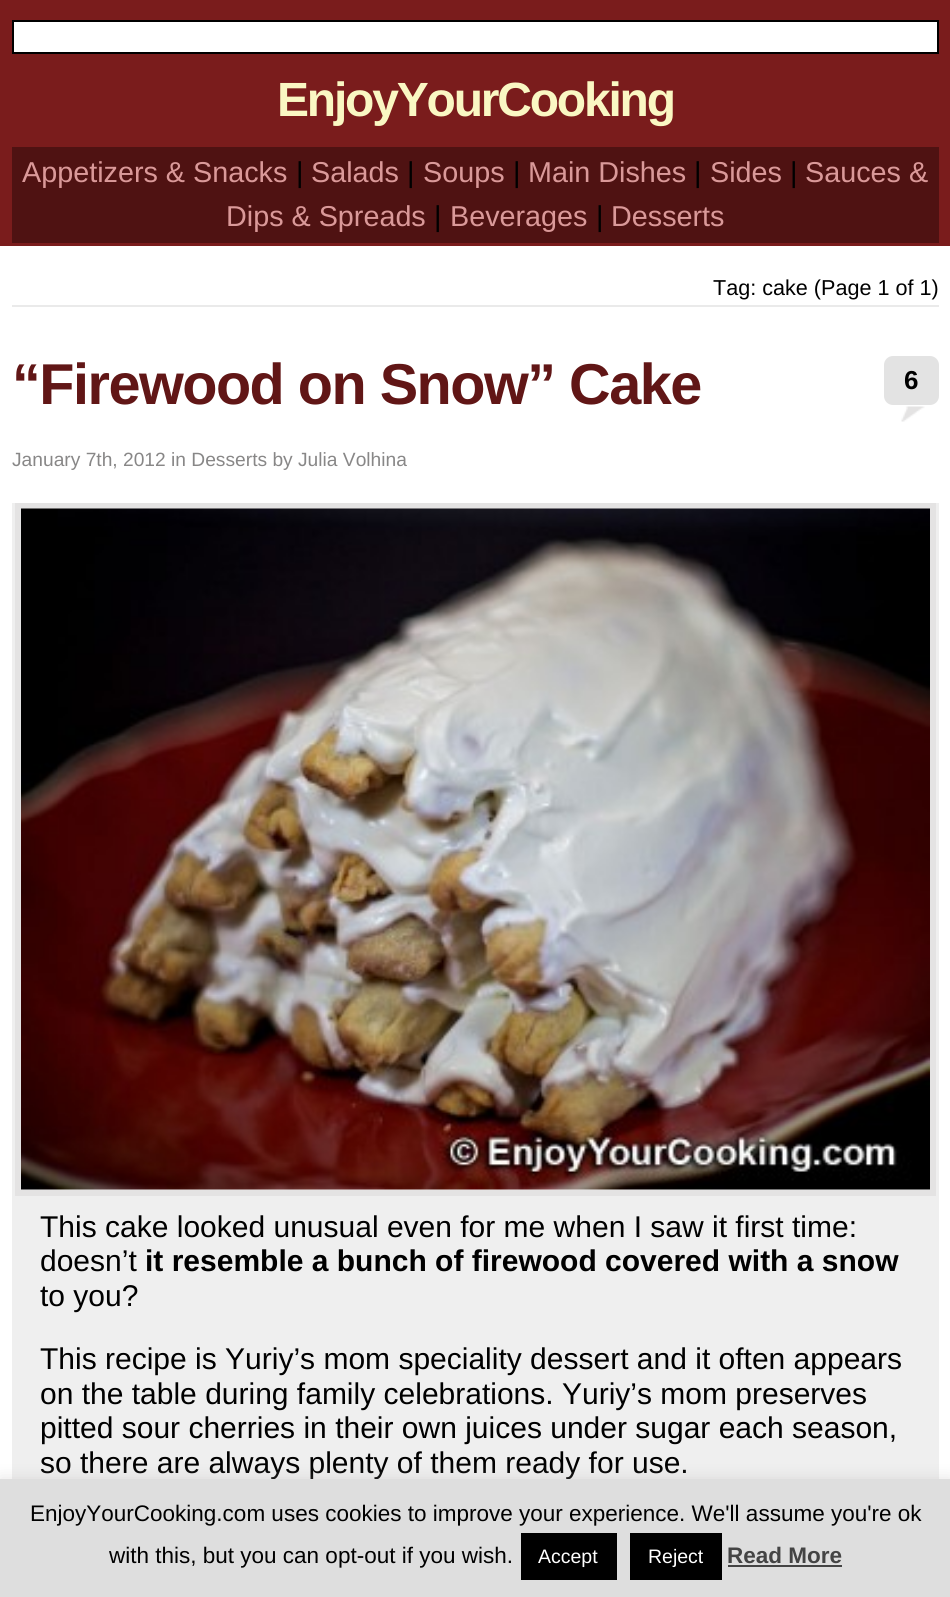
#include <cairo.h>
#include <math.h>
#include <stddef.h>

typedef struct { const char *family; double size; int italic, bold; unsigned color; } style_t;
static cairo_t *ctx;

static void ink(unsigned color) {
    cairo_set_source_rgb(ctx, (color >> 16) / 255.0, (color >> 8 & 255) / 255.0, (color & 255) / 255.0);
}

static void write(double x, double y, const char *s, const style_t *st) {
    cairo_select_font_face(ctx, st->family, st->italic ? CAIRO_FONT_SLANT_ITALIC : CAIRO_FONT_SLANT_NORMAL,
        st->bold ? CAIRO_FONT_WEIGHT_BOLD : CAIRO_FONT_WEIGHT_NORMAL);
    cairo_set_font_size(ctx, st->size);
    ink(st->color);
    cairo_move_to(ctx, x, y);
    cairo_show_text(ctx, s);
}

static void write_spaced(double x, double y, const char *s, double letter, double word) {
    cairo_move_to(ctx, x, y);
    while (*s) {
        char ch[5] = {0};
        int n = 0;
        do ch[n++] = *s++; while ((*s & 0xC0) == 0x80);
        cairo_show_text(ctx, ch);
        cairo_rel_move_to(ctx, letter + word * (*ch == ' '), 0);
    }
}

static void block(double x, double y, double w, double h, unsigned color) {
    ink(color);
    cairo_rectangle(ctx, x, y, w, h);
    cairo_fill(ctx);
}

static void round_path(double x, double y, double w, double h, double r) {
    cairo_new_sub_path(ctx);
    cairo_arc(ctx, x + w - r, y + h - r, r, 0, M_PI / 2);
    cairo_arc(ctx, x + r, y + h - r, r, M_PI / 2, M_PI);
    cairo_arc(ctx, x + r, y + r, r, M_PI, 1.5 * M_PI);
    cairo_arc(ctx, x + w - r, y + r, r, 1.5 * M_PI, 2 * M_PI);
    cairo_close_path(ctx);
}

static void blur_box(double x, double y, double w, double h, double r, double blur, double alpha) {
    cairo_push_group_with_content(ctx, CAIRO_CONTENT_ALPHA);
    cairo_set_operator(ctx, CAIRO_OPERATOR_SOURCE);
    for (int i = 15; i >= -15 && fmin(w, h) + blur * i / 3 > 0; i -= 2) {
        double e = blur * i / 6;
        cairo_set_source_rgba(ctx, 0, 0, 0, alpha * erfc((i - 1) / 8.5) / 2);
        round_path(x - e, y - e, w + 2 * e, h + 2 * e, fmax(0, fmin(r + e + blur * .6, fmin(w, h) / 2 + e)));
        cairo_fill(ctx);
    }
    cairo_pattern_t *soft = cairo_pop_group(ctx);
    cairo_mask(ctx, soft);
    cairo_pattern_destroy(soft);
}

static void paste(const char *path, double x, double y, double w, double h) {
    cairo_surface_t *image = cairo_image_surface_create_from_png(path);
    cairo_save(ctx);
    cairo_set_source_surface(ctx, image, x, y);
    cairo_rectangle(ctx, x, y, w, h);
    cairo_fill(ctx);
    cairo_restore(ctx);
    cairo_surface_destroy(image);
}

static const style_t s1 = {"Liberation Sans", 28.75, 0, 0, 0xda9999};
static const style_t s2 = {"Liberation Sans", 28.75, 0, 0, 0x000000};
static const style_t s3 = {"Liberation Sans", 21.6, 0, 0, 0x000000};
static const style_t s4 = {"Liberation Sans", 26, 0, 1, 0x000000};
static const style_t s5 = {"Liberation Sans", 19.2, 0, 0, 0x888787};
static const style_t s6 = {"Liberation Sans", 30, 0, 0, 0x000000};
static const style_t s7 = {"Liberation Sans", 30, 0, 1, 0x000000};
static const style_t s8 = {"Liberation Sans", 22.5, 0, 0, 0x000000};
static const style_t s9 = {"Liberation Sans", 19.5, 0, 0, 0xffffff};
static const style_t s10 = {"Liberation Sans", 22.5, 0, 1, 0x444444};

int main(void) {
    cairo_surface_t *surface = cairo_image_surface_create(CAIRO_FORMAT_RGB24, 950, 1597);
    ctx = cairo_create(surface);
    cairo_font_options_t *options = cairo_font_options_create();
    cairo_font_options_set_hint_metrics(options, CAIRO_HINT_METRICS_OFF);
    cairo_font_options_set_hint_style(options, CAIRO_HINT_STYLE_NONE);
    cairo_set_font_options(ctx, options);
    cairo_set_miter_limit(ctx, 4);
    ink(0xffffff);
    cairo_paint(ctx);
    block(0, 0, 950, 246, 0x7a1c1c);
    ink(0xffffff);
    cairo_rectangle(ctx, 13, 21, 925, 32);
    cairo_fill_preserve(ctx);
    ink(0x000000);
    cairo_stroke(ctx);
    cairo_select_font_face(ctx, "Liberation Sans", CAIRO_FONT_SLANT_NORMAL, CAIRO_FONT_WEIGHT_BOLD);
    cairo_set_font_size(ctx, 48);
    ink(0xfaf7c3);
    write_spaced(277, 116, "EnjoyYourCooking", -2.2, 0);
    block(12, 147, 927, 96, 0x4f1212);
    write(22, 182, "Appetizers & Snacks", &s1);
    write(296, 182, "|", &s2);
    write(311, 182, "Salads", &s1);
    write(407, 182, "|", &s2);
    write(423, 182, "Soups", &s1);
    write(513, 182, "|", &s2);
    write(528, 182, "Main Dishes", &s1);
    write(694, 182, "|", &s2);
    write(710, 182, "Sides", &s1);
    write(790, 182, "|", &s2);
    write(805, 182, "Sauces &", &s1);
    write(226, 226, "Dips & Spreads", &s1);
    write(434, 226, "|", &s2);
    write(450, 226, "Beverages", &s1);
    write(596, 226, "|", &s2);
    write(611, 226, "Desserts", &s1);
    block(12, 305, 927, 2, 0xeaeaea);
    write(713, 295, "Tag: cake (Page 1 of 1)", &s3);
    cairo_select_font_face(ctx, "Liberation Sans", CAIRO_FONT_SLANT_NORMAL, CAIRO_FONT_WEIGHT_BOLD);
    cairo_set_font_size(ctx, 57.6);
    ink(0x611616);
    write_spaced(12, 404, "“Firewood on Snow” Cake", -1.5, 0);
    paste("pic1.png", 901, 406, 24, 16);
    ink(0xe3e3e3);
    round_path(885, 357, 53, 47, 8);
    cairo_fill_preserve(ctx);
    cairo_stroke(ctx);
    write(904, 389, "6", &s4);
    write(12, 466, "January 7th, 2012 in Desserts by Julia Volhina", &s5);
    block(12, 503, 927, 976, 0xefefef);
    cairo_rectangle(ctx, 18, 506, 915, 687);
    ink(0xe4e3e3);
    cairo_set_line_width(ctx, 6);
    cairo_stroke(ctx);
    paste("pic2.png", 21, 508, 909, 682);
    write(40, 1237, "This cake looked unusual even for me when I saw it first time:", &s6);
    write(40, 1271, "doesn’t", &s6);
    write(145, 1271, "it resemble a bunch of firewood covered with a snow", &s7);
    write(40, 1306, "to you?", &s6);
    write(40, 1369, "This recipe is Yuriy’s mom speciality dessert and it often appears", &s6);
    write(40, 1404, "on the table during family celebrations. Yuriy’s mom preserves", &s6);
    write(40, 1438, "pitted sour cherries in their own juices under sugar each season,", &s6);
    write(40, 1473, "so there are always plenty of them ready for use.", &s6);
    ink(0xacabab);
    blur_box(0, 1478, 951, 118, 0, 7.5, 0.3);
    block(0, 1479, 950, 118, 0xdedede);
    write(30, 1521, "EnjoyYourCooking.com uses cookies to improve your experience. We'll assume you're ok", &s8);
    write(109, 1563, "with this, but you can opt-out if you wish.", &s8);
    block(521, 1533, 96, 47, 0x000000);
    write(538, 1563, "Accept", &s9);
    block(630, 1533, 92, 47, 0x000000);
    write(648, 1563, "Reject", &s9);
    write(727, 1563, "Read More", &s10);
    block(728, 1565, 114, 2, 0x444444);
    cairo_surface_write_to_png(surface, "screenshot.png");
    cairo_font_options_destroy(options);
    cairo_destroy(ctx);
    cairo_surface_destroy(surface);
    return 0;
}
